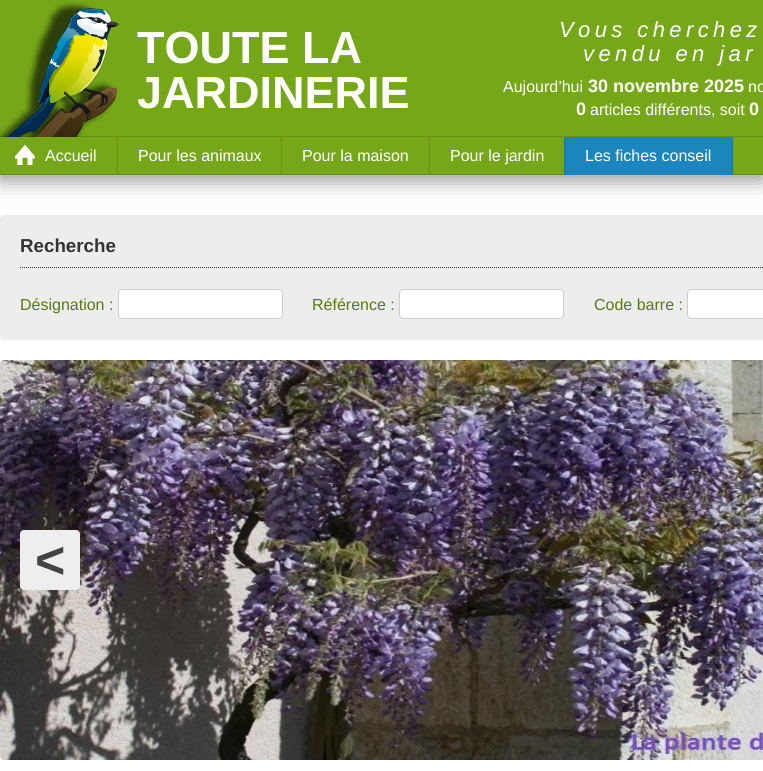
import math
import cairo

surface = cairo.ImageSurface(cairo.Format.RGB24, 763, 771)
ctx = cairo.Context(surface)
options = cairo.FontOptions()
options.set_hint_metrics(cairo.HintMetrics.OFF)
options.set_hint_style(cairo.HintStyle.NONE)
ctx.set_font_options(options)
ctx.set_miter_limit(4)


def ink(r, g, b):
    ctx.set_source_rgb(r / 255, g / 255, b / 255)


def write(x, y, s, family, size, color, bold=False, italic=False):
    ctx.select_font_face(family, cairo.FontSlant.ITALIC if italic else cairo.FontSlant.NORMAL, cairo.FontWeight.BOLD if bold else cairo.FontWeight.NORMAL)
    ctx.set_font_size(size)
    ink(*color)
    ctx.move_to(x, y)
    ctx.show_text(s)


def write_spaced(x, y, s, letter, word):
    ctx.move_to(x, y)
    for ch in s:
        ctx.show_text(ch)
        ctx.rel_move_to(letter + word * (ch == ' '), 0)


def block(x, y, w, h, *color):
    ink(*color)
    ctx.rectangle(x, y, w, h)
    ctx.fill()


def round_path(x, y, w, h, r):
    ctx.new_sub_path()
    for i, (u, v) in enumerate([(x + w - r, y + h - r), (x + r, y + h - r), (x + r, y + r), (x + w - r, y + r)]):
        ctx.arc(u, v, r, i * math.pi / 2, (i + 1) * math.pi / 2)
    ctx.close_path()


def blur_box(x, y, w, h, r, blur, alpha):
    ctx.push_group_with_content(cairo.Content.ALPHA)
    ctx.set_operator(cairo.Operator.SOURCE)
    for i in range(15, -16, -2):
        e = blur * i / 6
        if min(w, h) + 2 * e > 0:
            ctx.set_source_rgba(0, 0, 0, alpha * math.erfc((i - 1) / 8.5) / 2)
            round_path(x - e, y - e, w + 2 * e, h + 2 * e, max(0, min(r + e + blur * .6, min(w, h) / 2 + e)))
            ctx.fill()
    ctx.mask(ctx.pop_group())


def paste(path, x, y, w, h):
    ctx.save()
    ctx.set_source_surface(cairo.ImageSurface.create_from_png(path), x, y)
    ctx.rectangle(x, y, w, h)
    ctx.fill()
    ctx.restore()


s1 = dict(family="Liberation Sans", size=45, color=(255, 255, 255), bold=True)
s2 = dict(family="Liberation Sans", size=16, color=(255, 255, 255))
s3 = dict(family="Liberation Sans", size=18, color=(255, 255, 255), bold=True)
s4 = dict(family="Liberation Sans", size=18.75, color=(51, 51, 51), bold=True)
s5 = dict(family="Liberation Sans", size=16, color=(86, 122, 18))
s6 = dict(family="Liberation Sans", size=52, color=(68, 68, 68), bold=True)

ink(255, 255, 255)
ctx.paint()
ink(34, 34, 34)
blur_box(0, 142, 763, 38, 0, 10, 0.5)
block(0, 0, 763, 136, 118, 167, 24)
block(0, 136, 763, 1, 102, 145, 21)
paste("pic1.png", 0, 1, 119, 136)
write(137, 63, "TOUTE LA", **s1)
write(137, 108, "JARDINERIE", **s1)
ctx.select_font_face("Liberation Sans", cairo.FontSlant.ITALIC)
ctx.set_font_size(22)
write_spaced(559, 37, "Vous cherchez", 4.4, 0)
write_spaced(583, 61, "vendu en jar", 4.4, 0)
write(503, 92, "Aujourd’hui", **s2)
write(588, 92, "30 novembre 2025", **s3)
write(748, 92, "no", **s2)
write(576, 115, "0", **s3)
write(590, 115, "articles différents, soit", **s2)
write(749, 115, "0", **s3)
block(0, 137, 763, 37, 118, 167, 24)
block(0, 174, 763, 1, 102, 145, 21)
paste("pic2.png", 15, 145, 20, 20)
write(45, 161, "Accueil", **s2)
block(117, 137, 1, 38, 102, 145, 21)
write(138, 161, "Pour les animaux", **s2)
block(281, 137, 1, 38, 102, 145, 21)
write(302, 161, "Pour la maison", **s2)
block(429, 137, 1, 38, 102, 145, 21)
write(450, 161, "Pour le jardin", **s2)
block(732, 137, 1, 38, 24, 118, 167)
block(564, 137, 1, 38, 24, 118, 167)
block(565, 137, 167, 38, 27, 134, 189)
write(585, 161, "Les fiches conseil", **s2)
ink(237, 237, 237)
round_path(0, 215, 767, 125, 4)
ctx.fill()
ctx.new_path()
ctx.move_to(20, 267.5)
ctx.line_to(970, 267.5)
ink(51, 51, 51)
ctx.set_line_width(1)
ctx.set_dash([1, 1])
ctx.stroke()
write(20, 252, "Recherche", **s4)
write(20, 310, "Désignation :", **s5)
ink(255, 255, 255)
round_path(118.5, 289.5, 164, 29, 3.5)
ctx.fill_preserve()
ink(205, 205, 205)
ctx.set_dash([])
ctx.stroke()
write(312, 310, "Référence :", **s5)
ink(255, 255, 255)
round_path(399.5, 289.5, 164, 29, 3.5)
ctx.fill_preserve()
ink(205, 205, 205)
ctx.stroke()
write(594, 310, "Code barre :", **s5)
ink(255, 255, 255)
round_path(687.5, 289.5, 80, 29, 3.5)
ctx.fill_preserve()
ink(205, 205, 205)
ctx.stroke()
paste("pic3.png", 0, 360, 763, 400)
ink(238, 238, 238)
round_path(20, 530, 60, 60, 4)
ctx.fill()
write(35, 578, "<", **s6)
surface.write_to_png("screenshot.png")
